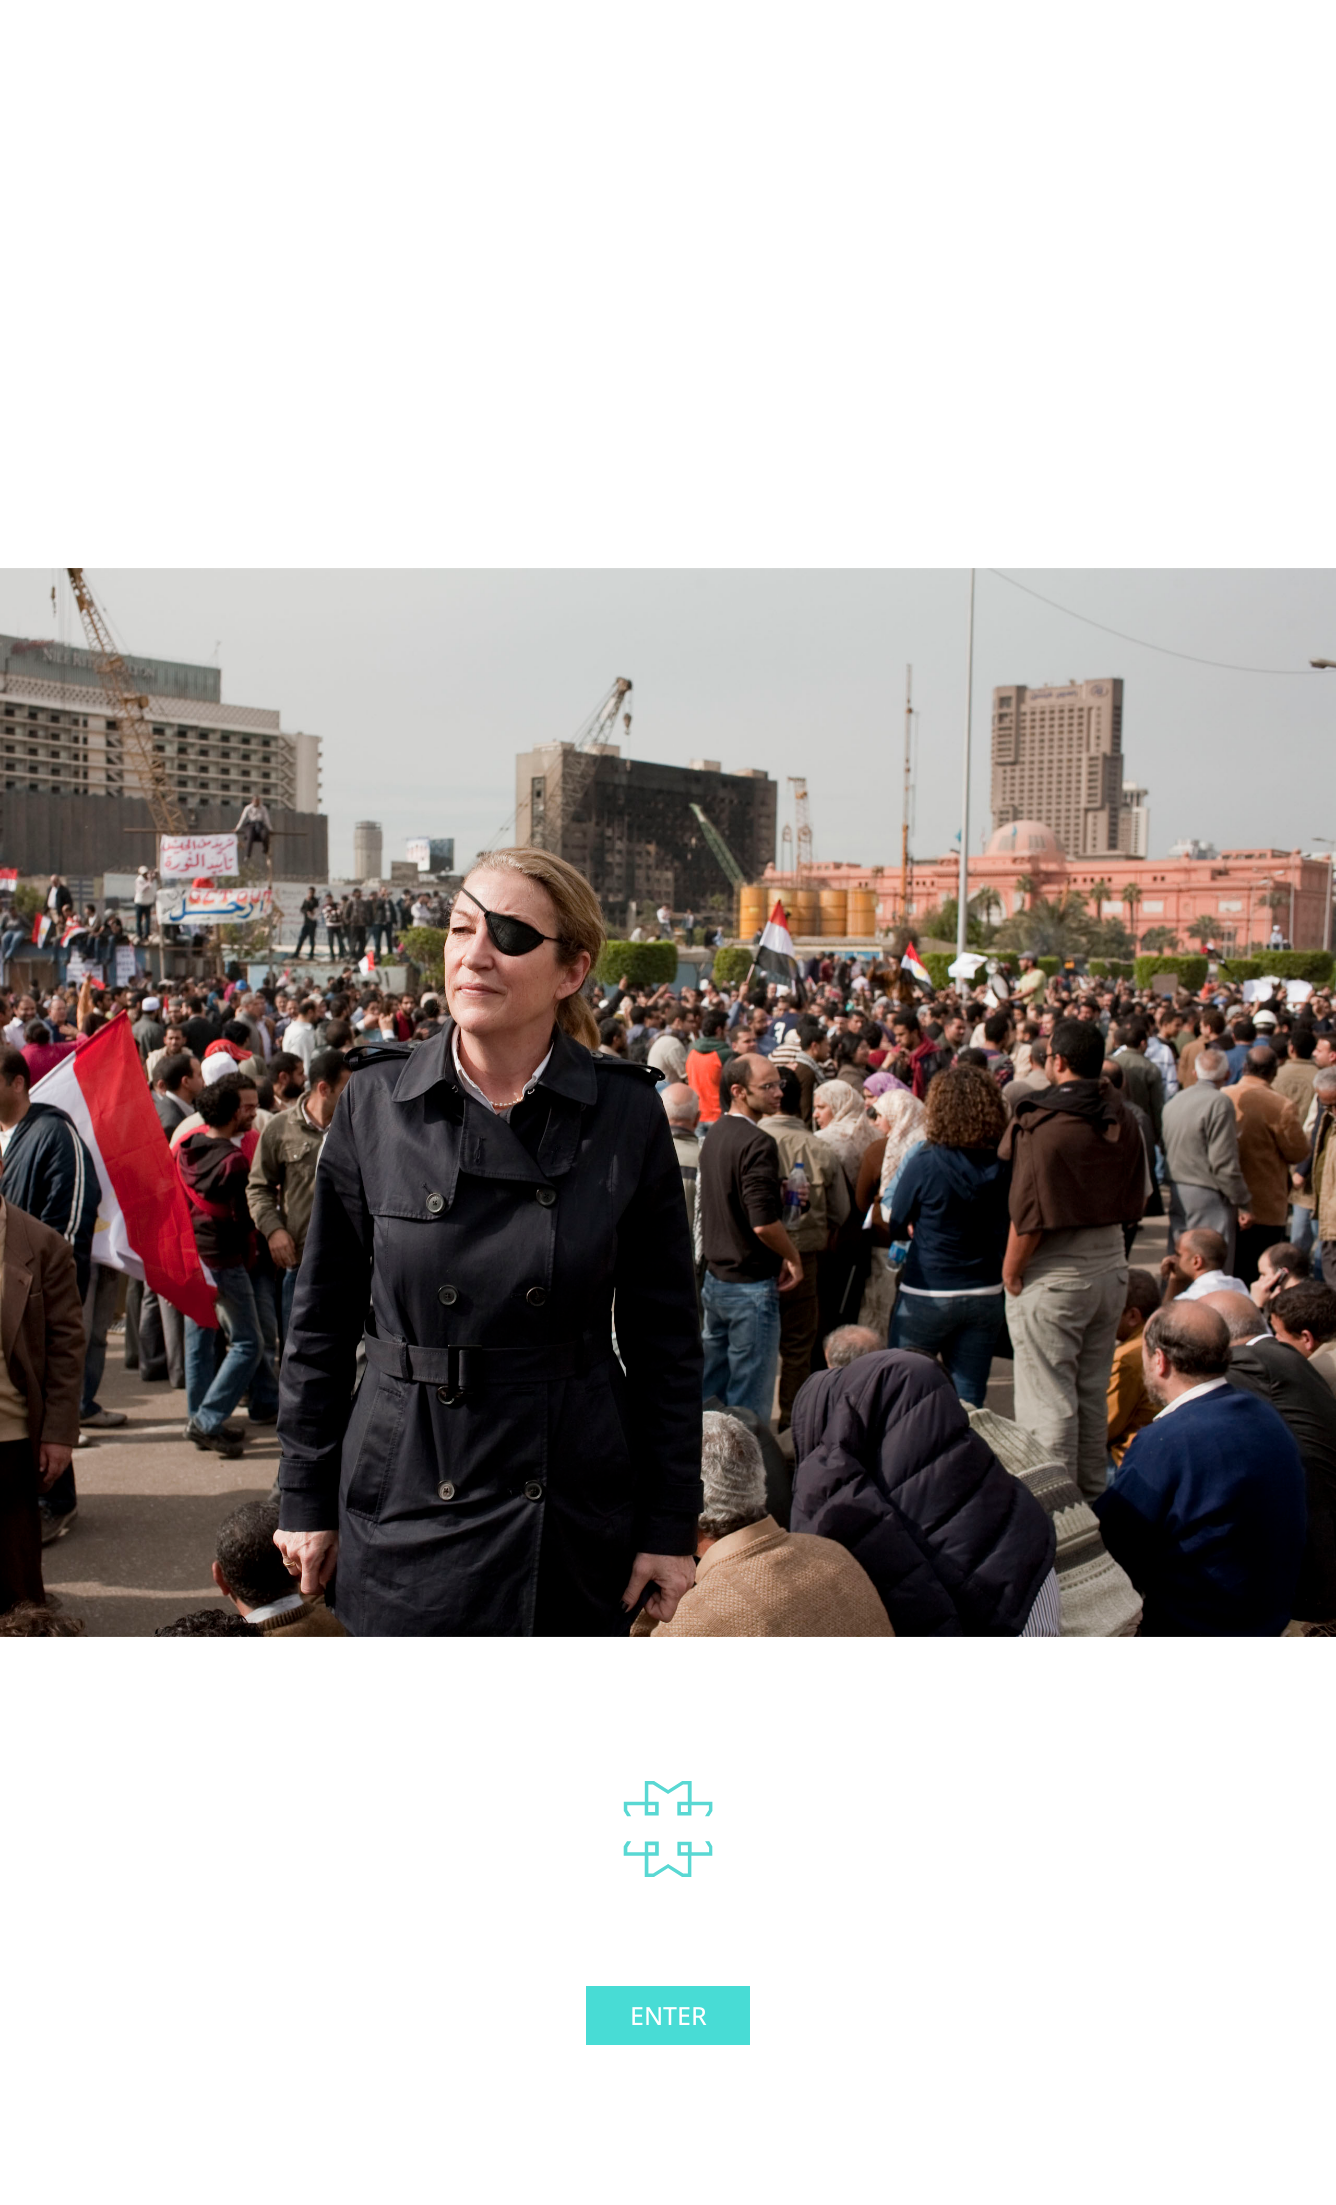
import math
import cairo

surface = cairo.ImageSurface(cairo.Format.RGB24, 1336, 2205)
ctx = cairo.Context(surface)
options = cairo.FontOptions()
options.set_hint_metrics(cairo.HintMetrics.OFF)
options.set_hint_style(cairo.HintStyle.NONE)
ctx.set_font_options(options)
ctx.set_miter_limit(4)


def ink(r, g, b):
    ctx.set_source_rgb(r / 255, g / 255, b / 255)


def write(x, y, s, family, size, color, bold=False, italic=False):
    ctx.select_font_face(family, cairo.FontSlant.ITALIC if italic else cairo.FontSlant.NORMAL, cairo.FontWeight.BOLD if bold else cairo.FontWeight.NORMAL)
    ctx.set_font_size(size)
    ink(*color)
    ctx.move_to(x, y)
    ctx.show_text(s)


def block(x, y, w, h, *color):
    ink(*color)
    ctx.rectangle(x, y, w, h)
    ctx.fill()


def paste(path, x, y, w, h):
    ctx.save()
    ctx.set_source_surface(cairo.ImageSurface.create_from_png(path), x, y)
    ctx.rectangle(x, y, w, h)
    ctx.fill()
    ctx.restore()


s1 = dict(family="Open Sans Medium", size=25, color=(255, 255, 255))

ink(255, 255, 255)
ctx.paint()
paste("pic1.png", 0, 568, 1336, 1069)
paste("pic2.png", 623, 1781, 90, 96)
block(586, 1986, 164, 59, 72, 220, 213)
write(630, 2025, "ENTER", **s1)
surface.write_to_png("screenshot.png")
